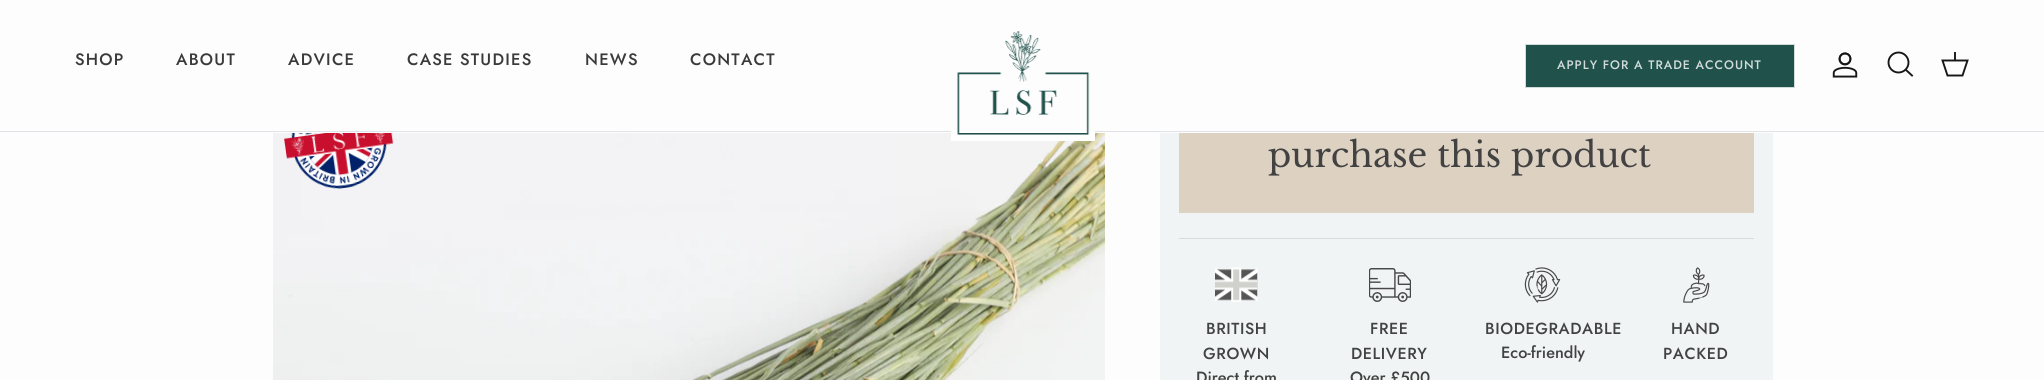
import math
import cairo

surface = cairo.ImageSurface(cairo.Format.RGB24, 2044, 380)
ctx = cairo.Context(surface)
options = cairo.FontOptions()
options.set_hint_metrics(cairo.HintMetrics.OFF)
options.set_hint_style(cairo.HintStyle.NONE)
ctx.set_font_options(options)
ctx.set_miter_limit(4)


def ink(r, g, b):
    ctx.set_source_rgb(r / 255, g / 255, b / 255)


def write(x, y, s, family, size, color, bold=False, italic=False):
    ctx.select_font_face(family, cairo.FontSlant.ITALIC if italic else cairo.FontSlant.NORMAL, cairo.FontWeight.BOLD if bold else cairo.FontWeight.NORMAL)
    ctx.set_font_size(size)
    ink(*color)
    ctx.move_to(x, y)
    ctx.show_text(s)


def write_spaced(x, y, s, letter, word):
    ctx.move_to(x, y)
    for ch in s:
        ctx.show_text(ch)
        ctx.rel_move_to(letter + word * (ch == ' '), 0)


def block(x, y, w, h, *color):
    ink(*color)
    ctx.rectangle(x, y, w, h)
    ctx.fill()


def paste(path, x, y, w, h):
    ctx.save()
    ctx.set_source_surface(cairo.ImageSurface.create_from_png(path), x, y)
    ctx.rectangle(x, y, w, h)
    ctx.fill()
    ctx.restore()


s1 = dict(family="Libre Baskerville", size=34.4, color=(66, 66, 66))
s2 = dict(family="Jost Medium", size=16.25, color=(66, 66, 66))

ink(253, 253, 253)
ctx.paint()
block(0, 131, 2044, 1, 223, 227, 232)
ctx.select_font_face("Jost Medium")
ctx.set_font_size(16.5)
ink(58, 58, 58)
write_spaced(75, 65, "SHOP", 1.25, 0)
write_spaced(176, 65, "ABOUT", 1.25, 0)
write_spaced(288, 65, "ADVICE", 1.25, 0)
write_spaced(407, 65, "CASE STUDIES", 1.25, 0)
write_spaced(585, 65, "NEWS", 1.25, 0)
write_spaced(690, 65, "CONTACT", 1.25, 0)
paste("pic3.png", 273, 133, 832, 247)
block(951, 131, 144, 10, 255, 255, 255)
paste("pic1.png", 957, 31, 133, 104)
ink(32, 81, 75)
ctx.rectangle(1525.5, 44.5, 269, 43)
ctx.fill_preserve()
ink(210, 220, 219)
ctx.set_line_width(1)
ctx.stroke()
ctx.set_font_size(12.3)
write_spaced(1557, 69, "APPLY FOR A TRADE ACCOUNT", 1, 0)
paste("pic2.png", 1832, 52, 26, 26)
ctx.arc(1898.5, 62.5, 10, 0, 2 * math.pi)
ink(23, 23, 23)
ctx.set_line_width(1.9)
ctx.stroke()
ctx.new_path()
ctx.move_to(1906, 70)
ctx.line_to(1912, 75.5)
ctx.set_line_cap(cairo.LineCap.SQUARE)
ctx.stroke()
ctx.new_path()
ctx.move_to(1942.5, 60.5)
ctx.line_to(1967.5, 60.5)
ctx.line_to(1962.5, 75.5)
ctx.line_to(1947.5, 75.5)
ctx.close_path()
ctx.set_line_cap(cairo.LineCap.BUTT)
ctx.stroke()
ctx.set_source_rgba(0.09, 0.09, 0.09, 0.95)
ctx.rectangle(1954, 52, 2, 9)
ctx.fill()
paste("pic4.png", 284, 133, 110, 56)
block(1160, 133, 613, 247, 241, 244, 244)
block(1179, 133, 575, 80, 221, 209, 194)
write(1268, 167, "purchase this product", **s1)
block(1179, 238, 575, 1, 217, 219, 219)
paste("pic5.png", 1215, 267, 43, 35)
ctx.select_font_face("Jost Medium")
ctx.set_font_size(16)
ink(66, 66, 66)
write_spaced(1206, 334, "BRITISH", 0.6, 0)
write_spaced(1203, 359, "GROWN", 0.6, 0)
write(1196, 383, "Direct from", **s2)
paste("pic6.png", 1369, 268, 42, 34)
ctx.set_font_size(16)
write_spaced(1370, 334, "FREE", 0.6, 0)
write_spaced(1351, 359, "DELIVERY", 0.6, 0)
write(1350, 383, "Over £500", **s2)
paste("pic7.png", 1524, 267, 37, 36)
ctx.set_font_size(16)
write_spaced(1485, 334, "BIODEGRADABLE", 0.6, 0)
write(1501, 358, "Eco-friendly", **s2)
paste("pic8.png", 1683, 267, 27, 36)
ctx.set_font_size(16)
write_spaced(1671, 334, "HAND", 0.6, 0)
write_spaced(1663, 359, "PACKED", 0.6, 0)
surface.write_to_png("screenshot.png")
